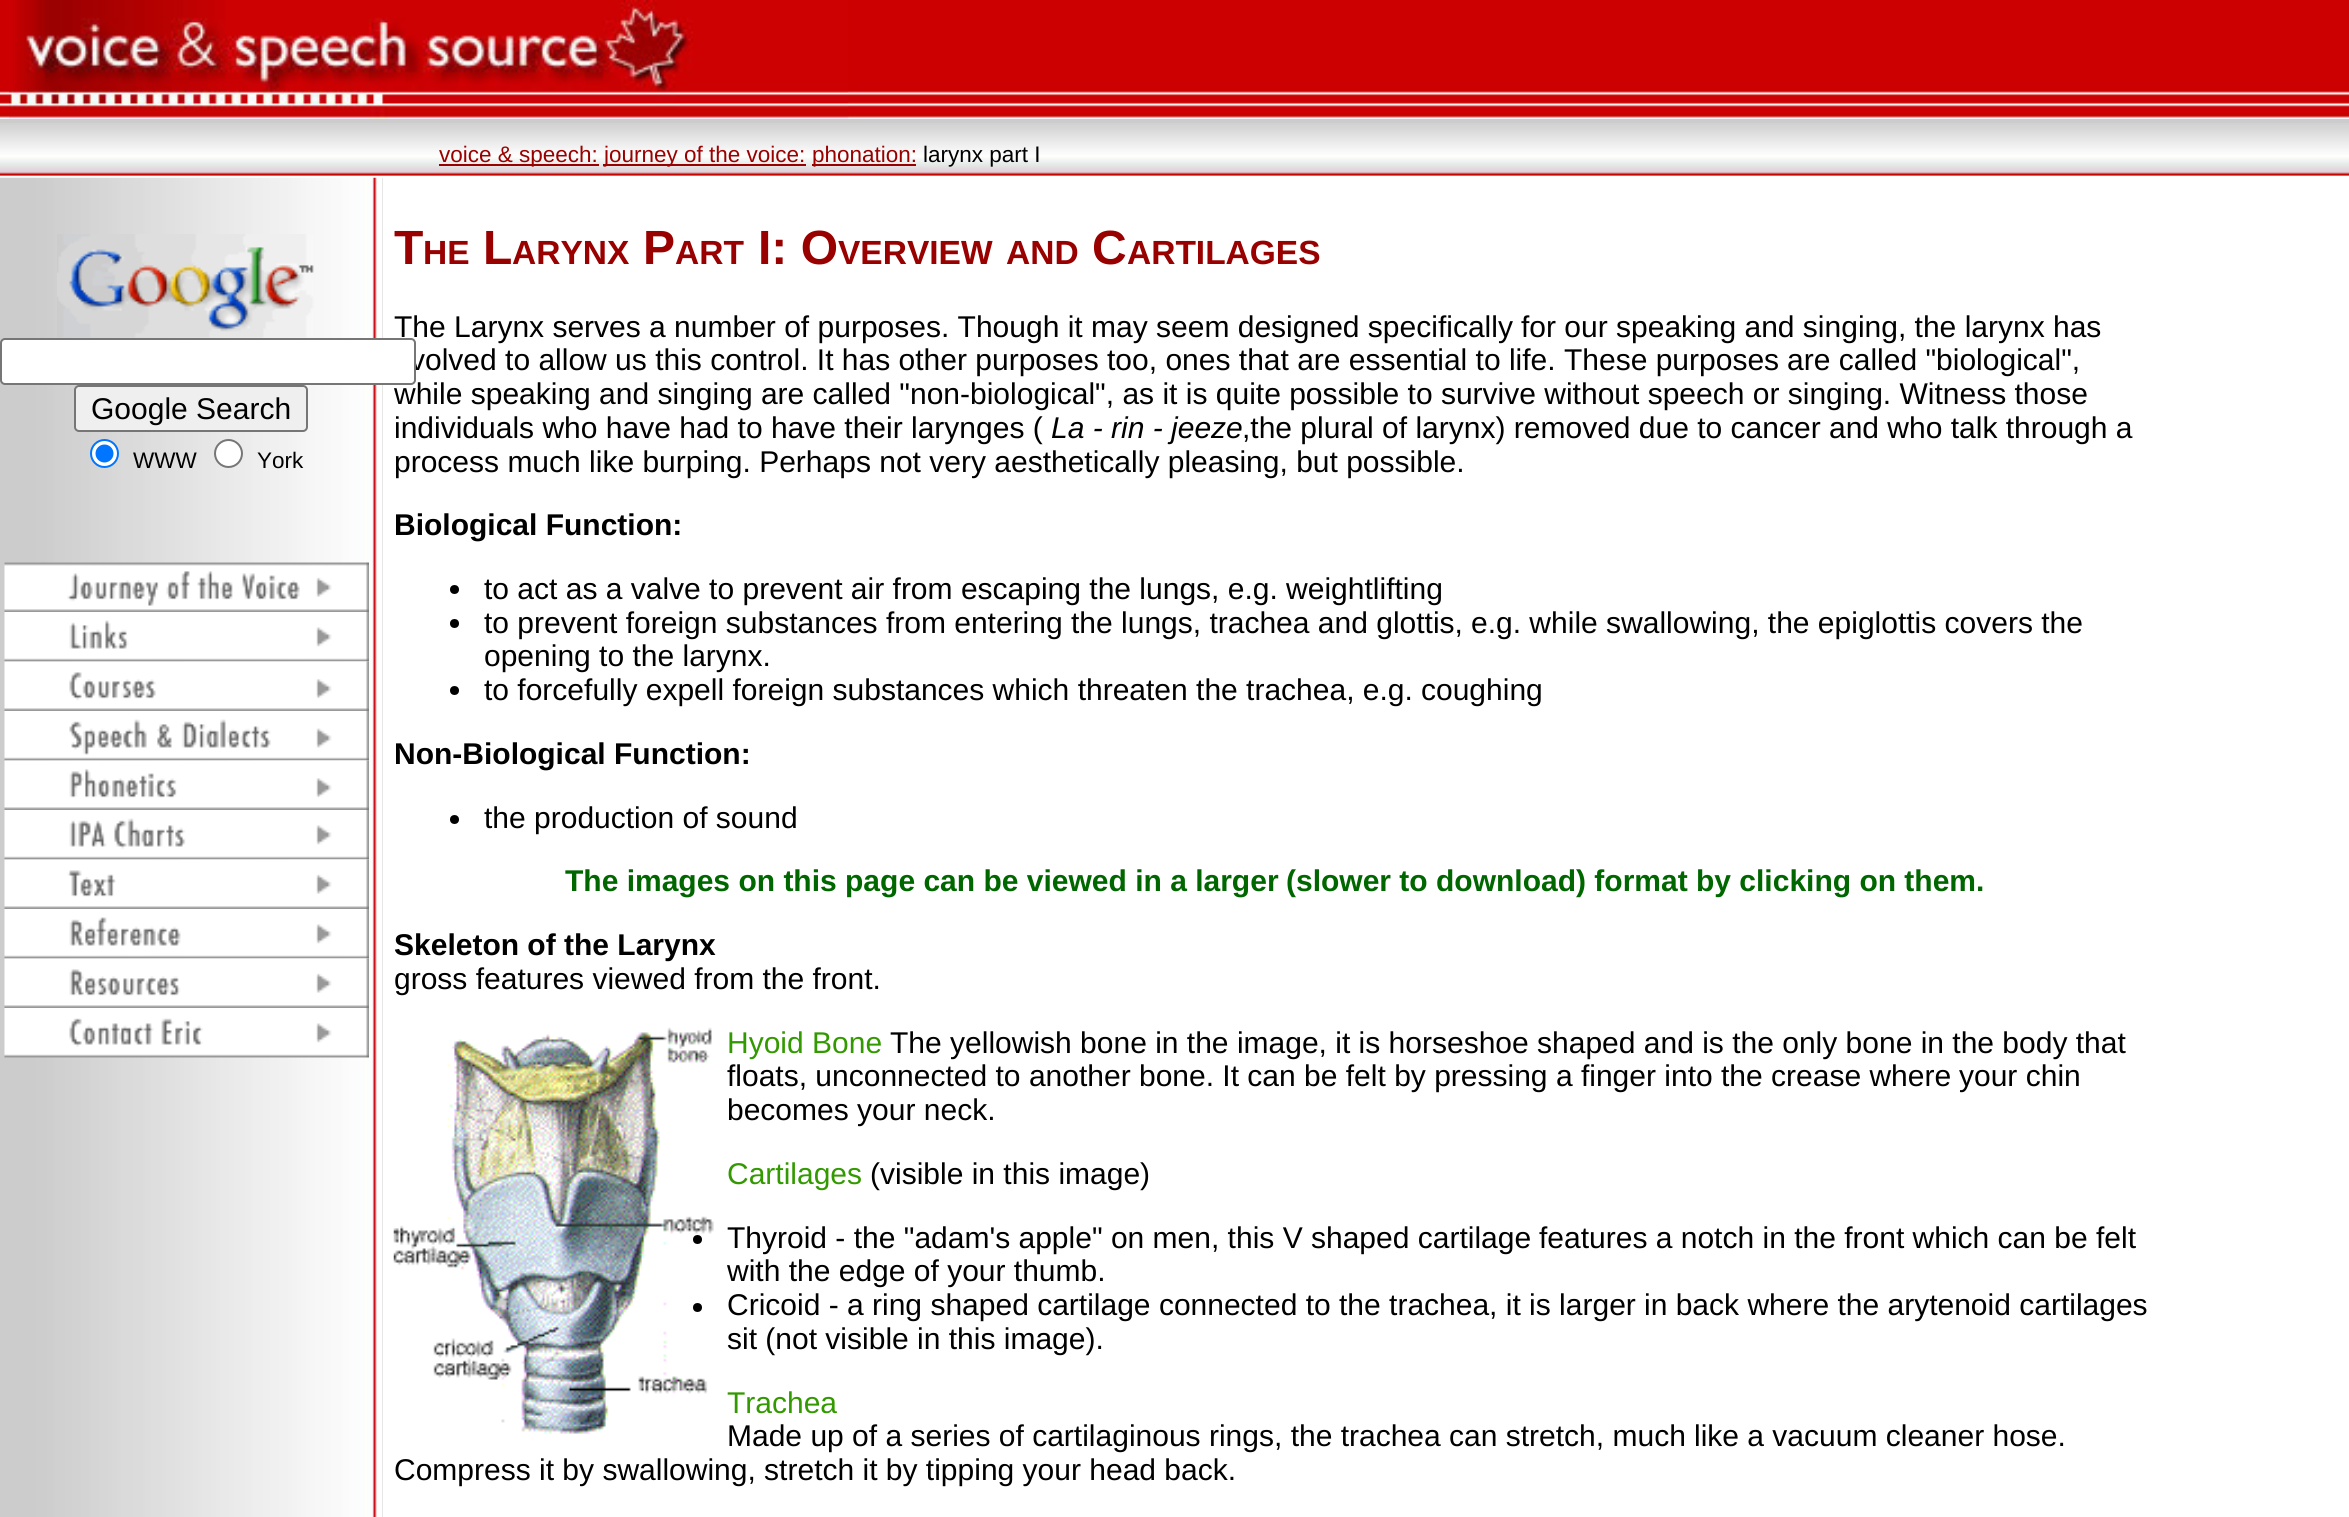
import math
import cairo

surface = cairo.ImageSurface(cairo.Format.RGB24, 2349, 1517)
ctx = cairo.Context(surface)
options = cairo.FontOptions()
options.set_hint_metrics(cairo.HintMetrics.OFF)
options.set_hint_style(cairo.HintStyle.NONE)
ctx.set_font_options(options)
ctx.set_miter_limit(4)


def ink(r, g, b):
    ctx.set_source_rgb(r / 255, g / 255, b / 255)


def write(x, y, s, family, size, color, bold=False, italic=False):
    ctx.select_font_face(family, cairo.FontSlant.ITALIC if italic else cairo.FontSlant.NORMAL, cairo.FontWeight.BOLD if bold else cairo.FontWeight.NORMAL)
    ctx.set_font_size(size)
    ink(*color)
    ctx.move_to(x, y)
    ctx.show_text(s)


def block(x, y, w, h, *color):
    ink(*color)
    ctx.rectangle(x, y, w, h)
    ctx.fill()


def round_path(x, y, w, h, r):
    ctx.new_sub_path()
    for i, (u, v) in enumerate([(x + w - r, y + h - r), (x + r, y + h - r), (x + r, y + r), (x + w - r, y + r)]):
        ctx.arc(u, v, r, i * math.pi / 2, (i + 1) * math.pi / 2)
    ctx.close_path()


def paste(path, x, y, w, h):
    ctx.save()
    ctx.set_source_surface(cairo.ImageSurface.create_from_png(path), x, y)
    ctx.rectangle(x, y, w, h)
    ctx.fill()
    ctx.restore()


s1 = dict(family="Liberation Sans", size=22.5, color=(153, 0, 0))
s2 = dict(family="Liberation Sans", size=22.5, color=(0, 0, 0))
s3 = dict(family="Liberation Sans", size=30, color=(0, 0, 0))
s4 = dict(family="Liberation Sans", size=48, color=(153, 0, 0), bold=True)
s5 = dict(family="Liberation Sans", size=33.5, color=(153, 0, 0), bold=True)
s6 = dict(family="Liberation Sans", size=30, color=(0, 0, 0), italic=True)
s7 = dict(family="Liberation Sans", size=30, color=(0, 0, 0), bold=True)
s8 = dict(family="Liberation Sans", size=30, color=(0, 102, 0), bold=True)
s9 = dict(family="Liberation Sans", size=30, color=(51, 153, 0))

ink(255, 255, 255)
ctx.paint()
block(0, 0, 2349, 91, 204, 0, 0)
paste("pic1.png", 0, 91, 2349, 28)
paste("pic2.png", 9, 0, 840, 119)
block(0, 119, 2349, 57, 204, 204, 204)
paste("pic3.png", 0, 123, 2349, 53)
block(439, 164, 160, 2, 153, 0, 0)
write(439, 162, "voice & speech:", **s1)
block(603, 164, 203, 2, 153, 0, 0)
write(604, 162, "journey of the voice:", **s1)
block(812, 164, 104, 2, 153, 0, 0)
write(812, 162, "phonation:", **s1)
write(923, 162, "larynx part I", **s2)
block(382, 178, 1, 1339, 204, 204, 204)
paste("pic4.png", 0, 177, 383, 1340)
paste("pic5.png", 57, 234, 257, 104)
write(394, 337, "The Larynx serves a number of purposes. Though it may seem designed specifically", **s3)
write(410, 370, "volved to allow us this control. It has other purposes too, ones that are essential to life. These purposes", **s3)
write(394, 404, "while speaking and singing are called \"non-biological\", as it is quite possible to survive without speech or singing. Witness those", **s3)
ink(255, 255, 255)
round_path(1, 339, 414, 45, 4)
ctx.fill_preserve()
ink(118, 118, 118)
ctx.stroke()
ink(239, 239, 239)
round_path(75, 386, 232, 45, 4)
ctx.fill_preserve()
ink(118, 118, 118)
ctx.stroke()
write(91, 419, "Google Search", **s3)
ink(255, 255, 255)
ctx.new_path()
ctx.arc(104.5, 453.5, 13.5, 0, 2 * math.pi)
ctx.fill_preserve()
ink(0, 117, 255)
ctx.stroke()
ctx.arc(104.5, 453.5, 9, 0, 2 * math.pi)
ctx.fill()
write(133, 468, "WWW", **s2)
ink(255, 255, 255)
ctx.new_path()
ctx.arc(228.5, 453.5, 13.5, 0, 2 * math.pi)
ctx.fill_preserve()
ink(118, 118, 118)
ctx.stroke()
write(257, 468, "York", **s2)
write(394, 264, "T", **s4)
write(423, 264, "HE", **s5)
write(483, 264, "L", **s4)
write(512, 264, "ARYNX", **s5)
write(643, 264, "P", **s4)
write(675, 264, "ART", **s5)
write(758, 264, "I: O", **s4)
write(838, 264, "VERVIEW", **s5)
write(1006, 264, "AND", **s5)
write(1092, 264, "C", **s4)
write(1127, 264, "ARTILAGES", **s5)
write(1521, 337, "for our speaking and singing, the larynx has", **s3)
write(1787, 370, "are called \"biological\",", **s3)
write(394, 438, "individuals who have had to have their larynges (", **s3)
write(1051, 438, "La - rin - jeeze", **s6)
write(1242, 438, ",the plural of larynx) removed due to cancer and who talk through a", **s3)
write(394, 472, "process much like burping. Perhaps not very aesthetically pleasing, but possible.", **s3)
write(394, 535, "Biological Function:", **s7)
ctx.new_path()
ctx.arc(454.5, 589.5, 4.5, 0, 2 * math.pi)
ctx.fill()
write(484, 599, "to act as a valve to prevent air from escaping the lungs, e.g. weightlifting", **s3)
ctx.new_path()
ctx.arc(454.5, 623.5, 4.5, 0, 2 * math.pi)
ctx.fill()
write(484, 633, "to prevent foreign substances from entering the lungs, trachea and glottis,", **s3)
write(1471, 633, "e.g. while swallowing, the epiglottis covers the", **s3)
write(484, 666, "opening to the larynx.", **s3)
ctx.new_path()
ctx.arc(454.5, 690.5, 4.5, 0, 2 * math.pi)
ctx.fill()
write(484, 700, "to forcefully expell foreign substances which threaten the trachea, e.g.", **s3)
write(1421, 700, "coughing", **s3)
write(394, 764, "Non-Biological Function:", **s7)
ctx.new_path()
ctx.arc(454.5, 819.5, 4.5, 0, 2 * math.pi)
ctx.fill()
write(484, 828, "the production of sound", **s3)
write(565, 891, "The images on this page can be viewed in a larger", **s8)
write(1286, 891, "(slower to download) format by clicking on them.", **s8)
write(394, 955, "Skeleton of the Larynx", **s7)
write(394, 989, "gross features viewed from the front.", **s3)
paste("pic6.png", 393, 1027, 321, 407)
write(727, 1053, "Hyoid Bone", **s9)
write(890, 1053, "The yellowish bone in the image, it is horseshoe shaped and is the only bone in the body that", **s3)
write(727, 1086, "floats, unconnected to another bone. It can be felt by pressing a finger into the crease where", **s3)
write(1959, 1086, "your chin", **s3)
write(727, 1120, "becomes your neck.", **s3)
write(727, 1184, "Cartilages", **s9)
write(870, 1184, "(visible in this image)", **s3)
ctx.new_path()
ctx.arc(697.5, 1239.5, 4.5, 0, 2 * math.pi)
ctx.fill()
write(727, 1248, "Thyroid - the \"adam's apple\" on men, this V shaped cartilage", **s3)
write(1539, 1248, "features a notch in the front which can be felt", **s3)
write(727, 1281, "with the edge of your thumb.", **s3)
ctx.new_path()
ctx.arc(697.5, 1307.5, 4.5, 0, 2 * math.pi)
ctx.fill()
write(727, 1315, "Cricoid - a ring shaped cartilage connected to the trachea, it is larger", **s3)
write(1644, 1315, "in back where the arytenoid cartilages", **s3)
write(727, 1349, "sit (not visible in this image).", **s3)
write(727, 1413, "Trachea", **s9)
write(727, 1446, "Made up of a series of cartilaginous rings, the trachea can stretch, much", **s3)
write(1694, 1446, "like a vacuum cleaner hose.", **s3)
write(394, 1480, "Compress it by swallowing, stretch it by tipping your head back.", **s3)
paste("pic7.png", 4, 562, 365, 50)
paste("pic8.png", 4, 612, 365, 50)
paste("pic9.png", 4, 661, 365, 50)
paste("pic10.png", 4, 711, 365, 50)
paste("pic11.png", 4, 760, 365, 50)
paste("pic12.png", 4, 810, 365, 50)
paste("pic13.png", 4, 859, 365, 50)
paste("pic14.png", 4, 909, 365, 50)
paste("pic15.png", 4, 958, 365, 50)
paste("pic16.png", 4, 1008, 365, 50)
surface.write_to_png("screenshot.png")
